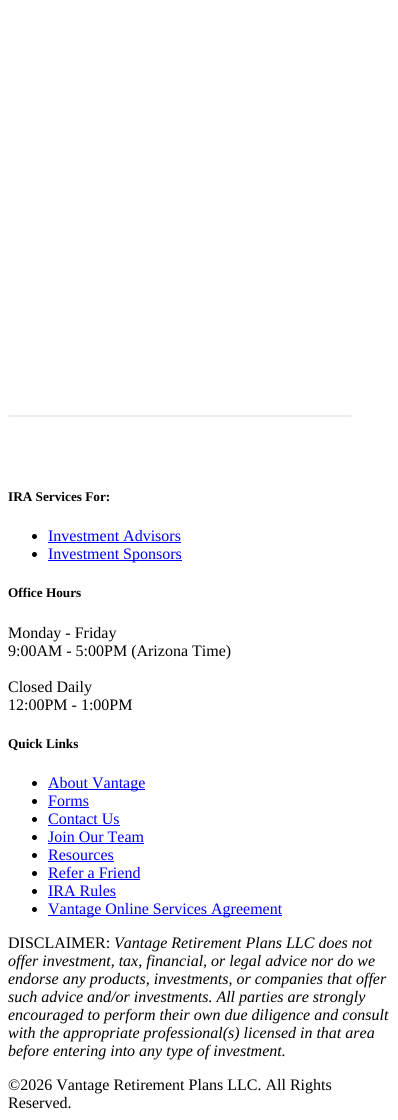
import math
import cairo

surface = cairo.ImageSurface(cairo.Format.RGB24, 398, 1120)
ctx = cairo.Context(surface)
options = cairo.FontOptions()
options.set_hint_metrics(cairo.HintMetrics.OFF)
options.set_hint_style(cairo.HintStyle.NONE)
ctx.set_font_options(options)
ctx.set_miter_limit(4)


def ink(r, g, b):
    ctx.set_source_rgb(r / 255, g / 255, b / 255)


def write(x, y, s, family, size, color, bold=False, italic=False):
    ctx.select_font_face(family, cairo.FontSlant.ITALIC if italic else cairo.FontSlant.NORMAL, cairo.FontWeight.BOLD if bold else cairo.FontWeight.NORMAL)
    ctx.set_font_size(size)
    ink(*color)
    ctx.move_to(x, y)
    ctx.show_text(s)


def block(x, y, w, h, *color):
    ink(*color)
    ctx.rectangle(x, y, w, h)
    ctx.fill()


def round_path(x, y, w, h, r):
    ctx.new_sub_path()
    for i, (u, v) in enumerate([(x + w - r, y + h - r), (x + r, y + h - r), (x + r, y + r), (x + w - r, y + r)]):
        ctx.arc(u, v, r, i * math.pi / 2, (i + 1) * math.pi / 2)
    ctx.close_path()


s1 = dict(family="Liberation Serif", size=13.25, color=(0, 0, 0), bold=True)
s2 = dict(family="Liberation Serif", size=16, color=(0, 0, 255))
s3 = dict(family="Liberation Serif", size=16, color=(0, 0, 0))
s4 = dict(family="Liberation Serif", size=16, color=(0, 0, 0), italic=True)

ink(255, 255, 255)
ctx.paint()
ink(238, 236, 241)
round_path(8, 415, 344, 2, 1)
ctx.fill()
write(8, 501, "IRA Services For:", **s1)
ctx.new_path()
ctx.arc(34.5, 536.5, 2.5, 0, 2 * math.pi)
ctx.fill()
write(48, 541, "Investment Advisors", **s2)
block(48, 542, 133, 1, 0, 0, 255)
ink(0, 0, 0)
ctx.new_path()
ctx.arc(34.5, 554.5, 2.5, 0, 2 * math.pi)
ctx.fill()
block(48, 560, 134, 1, 0, 0, 255)
write(48, 559, "Investment Sponsors", **s2)
write(8, 597, "Office Hours", **s1)
write(8, 638, "Monday - Friday", **s3)
write(8, 656, "9:00AM - 5:00PM (Arizona Time)", **s3)
write(8, 692, "Closed Daily", **s3)
write(8, 710, "12:00PM - 1:00PM", **s3)
write(8, 748, "Quick Links", **s1)
ctx.new_path()
ctx.arc(34.5, 783.5, 2.5, 0, 2 * math.pi)
ctx.fill()
block(48, 789, 97, 1, 0, 0, 255)
write(48, 788, "About Vantage", **s2)
ink(0, 0, 0)
ctx.new_path()
ctx.arc(34.5, 801.5, 2.5, 0, 2 * math.pi)
ctx.fill()
write(48, 806, "Forms", **s2)
block(48, 807, 41, 1, 0, 0, 255)
ink(0, 0, 0)
ctx.new_path()
ctx.arc(34.5, 819.5, 2.5, 0, 2 * math.pi)
ctx.fill()
write(48, 824, "Contact Us", **s2)
block(48, 825, 72, 1, 0, 0, 255)
ink(0, 0, 0)
ctx.new_path()
ctx.arc(34.5, 837.5, 2.5, 0, 2 * math.pi)
ctx.fill()
write(48, 842, "Join Our Team", **s2)
block(48, 843, 96, 1, 0, 0, 255)
ink(0, 0, 0)
ctx.new_path()
ctx.arc(34.5, 855.5, 2.5, 0, 2 * math.pi)
ctx.fill()
write(48, 860, "Resources", **s2)
block(48, 861, 66, 1, 0, 0, 255)
ink(0, 0, 0)
ctx.new_path()
ctx.arc(34.5, 873.5, 2.5, 0, 2 * math.pi)
ctx.fill()
write(48, 878, "Refer a Friend", **s2)
block(48, 879, 92, 1, 0, 0, 255)
ink(0, 0, 0)
ctx.new_path()
ctx.arc(34.5, 891.5, 2.5, 0, 2 * math.pi)
ctx.fill()
write(48, 896, "IRA Rules", **s2)
block(48, 897, 68, 1, 0, 0, 255)
ink(0, 0, 0)
ctx.new_path()
ctx.arc(34.5, 909.5, 2.5, 0, 2 * math.pi)
ctx.fill()
block(48, 915, 234, 1, 0, 0, 255)
write(48, 914, "Vantage Online Services Agreement", **s2)
write(8, 948, "DISCLAIMER:", **s3)
write(114, 948, "Vantage Retirement Plans LLC does not", **s4)
write(8, 966, "offer investment, tax, financial, or legal advice nor do we", **s4)
write(8, 984, "endorse any products, investments, or companies that offer", **s4)
write(8, 1002, "such advice and/or investments. All parties are strongly", **s4)
write(8, 1020, "encouraged to perform their own due diligence and consult", **s4)
write(8, 1038, "with the appropriate professional(s) licensed in that area", **s4)
write(8, 1056, "before entering into any type of investment.", **s4)
write(8, 1090, "©2026 Vantage Retirement Plans LLC. All Rights", **s3)
write(8, 1108, "Reserved.", **s3)
surface.write_to_png("screenshot.png")
